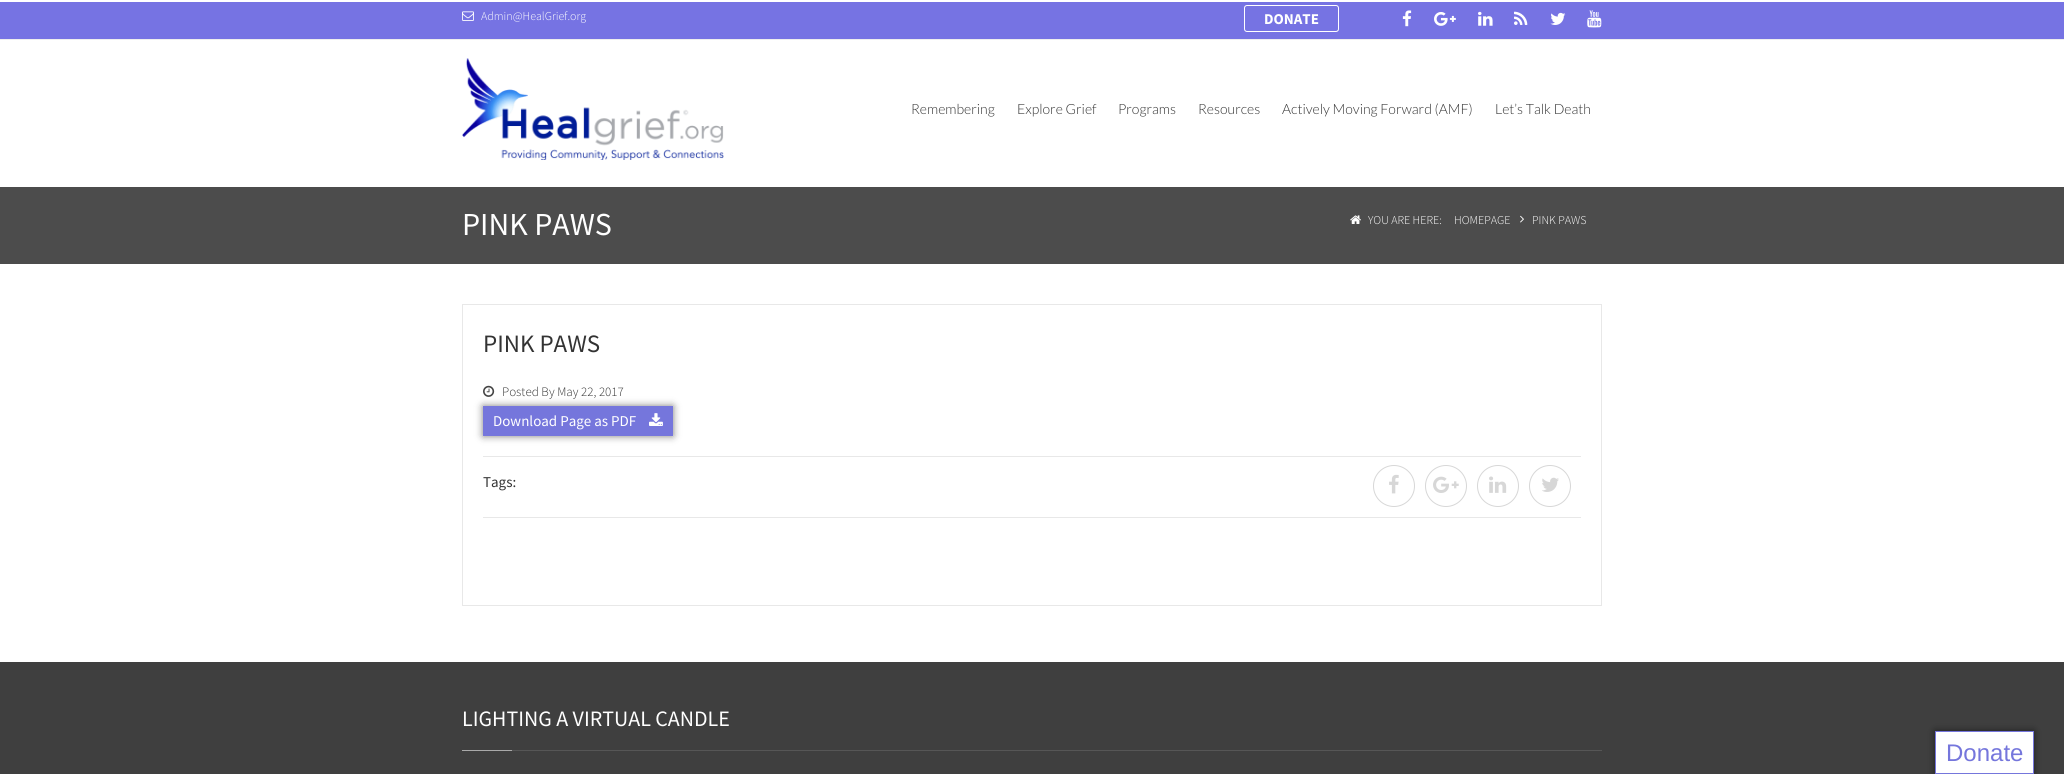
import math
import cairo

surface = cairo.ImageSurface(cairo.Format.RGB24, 2064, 774)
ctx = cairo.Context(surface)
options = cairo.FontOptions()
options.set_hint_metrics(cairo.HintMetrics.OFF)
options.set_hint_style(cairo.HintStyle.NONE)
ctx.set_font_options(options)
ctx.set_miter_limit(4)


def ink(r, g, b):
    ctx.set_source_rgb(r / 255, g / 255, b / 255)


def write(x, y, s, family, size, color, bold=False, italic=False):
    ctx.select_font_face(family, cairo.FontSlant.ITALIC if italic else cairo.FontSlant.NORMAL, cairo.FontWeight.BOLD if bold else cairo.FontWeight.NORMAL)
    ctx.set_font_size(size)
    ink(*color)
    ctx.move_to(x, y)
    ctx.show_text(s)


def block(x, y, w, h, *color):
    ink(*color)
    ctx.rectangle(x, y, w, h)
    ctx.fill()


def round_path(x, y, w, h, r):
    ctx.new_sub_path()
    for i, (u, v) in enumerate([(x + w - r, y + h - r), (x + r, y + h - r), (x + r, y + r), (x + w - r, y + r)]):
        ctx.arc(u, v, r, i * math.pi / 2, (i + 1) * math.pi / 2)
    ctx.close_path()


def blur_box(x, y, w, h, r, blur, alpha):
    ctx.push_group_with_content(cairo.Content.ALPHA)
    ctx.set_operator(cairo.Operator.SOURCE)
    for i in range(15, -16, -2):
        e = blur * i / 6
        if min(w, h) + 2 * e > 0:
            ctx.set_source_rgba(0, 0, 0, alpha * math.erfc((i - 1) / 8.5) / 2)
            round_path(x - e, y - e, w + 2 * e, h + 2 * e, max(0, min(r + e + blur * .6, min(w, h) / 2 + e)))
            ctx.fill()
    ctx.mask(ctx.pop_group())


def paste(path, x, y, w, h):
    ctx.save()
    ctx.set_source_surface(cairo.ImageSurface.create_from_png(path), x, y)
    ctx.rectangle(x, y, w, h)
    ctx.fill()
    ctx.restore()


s1 = dict(family="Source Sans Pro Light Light", size=12, color=(255, 255, 255))
s2 = dict(family="Source Sans Pro", size=15, color=(255, 255, 255), bold=True)
s3 = dict(family="Lato Light", size=14, color=(51, 51, 51))
s4 = dict(family="Source Sans Pro", size=32, color=(255, 255, 255))
s5 = dict(family="Source Sans Pro", size=25, color=(51, 51, 51))
s6 = dict(family="Source Sans Pro Light Light", size=13, color=(51, 51, 51))
s7 = dict(family="Source Sans Pro", size=15, color=(255, 255, 255))
s8 = dict(family="Source Sans Pro", size=15, color=(51, 51, 51))
s9 = dict(family="Source Sans Pro", size=22, color=(255, 255, 255))
s10 = dict(family="Liberation Sans", size=24, color=(117, 118, 220))

ink(255, 255, 255)
ctx.paint()
block(0, 2, 2064, 37, 118, 115, 227)
block(0, 39, 2064, 1, 238, 238, 238)
paste("pic1.png", 462, 11, 12, 10)
write(481, 20, "Admin@HealGrief.org", **s1)
round_path(1244.5, 5.5, 94, 26, 2.5)
ctx.set_line_width(1)
ctx.stroke()
write(1264, 24, "DONATE", **s2)
paste("pic2.png", 1402, 10, 10, 17)
paste("pic3.png", 1434, 12, 22, 14)
paste("pic4.png", 1478, 11, 15, 15)
paste("pic5.png", 1514, 11, 14, 14)
paste("pic6.png", 1550, 12, 16, 13)
paste("pic7.png", 1587, 10, 15, 18)
paste("pic8.png", 462, 58, 262, 102)
write(911, 114, "Remembering", **s3)
write(1017, 114, "Explore Grief", **s3)
write(1118, 114, "Programs", **s3)
write(1198, 114, "Resources", **s3)
write(1282, 114, "Actively Moving Forward (AMF)", **s3)
write(1495, 114, "Let’s Talk Death", **s3)
ctx.set_source_rgba(0, 0, 0, 0.7)
ctx.rectangle(0, 187, 2064, 77)
ctx.fill()
write(462, 235, "PINK PAWS", **s4)
paste("pic9.png", 1350, 215, 11, 9)
write(1368, 224, "YOU ARE HERE:", **s1)
write(1454, 224, "HOMEPAGE", **s1)
paste("pic10.png", 1520, 215, 4, 8)
write(1532, 224, "PINK PAWS", **s1)
ctx.rectangle(462.5, 304.5, 1139, 301)
ink(232, 232, 232)
ctx.stroke()
write(483, 352, "PINK PAWS", **s5)
paste("pic11.png", 483, 385, 12, 12)
write(502, 396, "Posted By May 22, 2017", **s6)
ink(0, 0, 0)
blur_box(483, 406, 190, 30, 0, 4, 0.5)
block(483, 406, 190, 30, 117, 118, 220)
write(493, 426, "Download Page as PDF", **s7)
paste("pic12.png", 649, 413, 14, 13)
block(483, 456, 1098, 1, 232, 232, 232)
block(483, 517, 1098, 1, 232, 232, 232)
write(483, 487, "Tags:", **s8)
ctx.new_path()
ctx.arc(1394, 486, 20.5, 0, 2 * math.pi)
ink(215, 215, 215)
ctx.stroke()
paste("pic13.png", 1389, 474, 10, 20)
ctx.arc(1446, 486, 20.5, 0, 2 * math.pi)
ctx.stroke()
paste("pic14.png", 1433, 476, 26, 17)
ctx.arc(1498, 486, 20.5, 0, 2 * math.pi)
ctx.stroke()
paste("pic15.png", 1489, 476, 18, 17)
ctx.arc(1550, 486, 20.5, 0, 2 * math.pi)
ctx.stroke()
paste("pic16.png", 1542, 477, 17, 15)
block(0, 662, 2064, 112, 63, 63, 63)
block(512, 750, 1090, 1, 86, 86, 86)
write(462, 726, "LIGHTING A VIRTUAL CANDLE", **s9)
block(462, 750, 50, 1, 169, 169, 169)
ink(0, 0, 0)
blur_box(1935, 731, 99, 43, 0, 4, 0.5)
ink(255, 255, 255)
ctx.rectangle(1935.5, 731.5, 98, 42)
ctx.fill_preserve()
ink(117, 118, 220)
ctx.stroke()
write(1946, 761, "Donate", **s10)
surface.write_to_png("screenshot.png")
